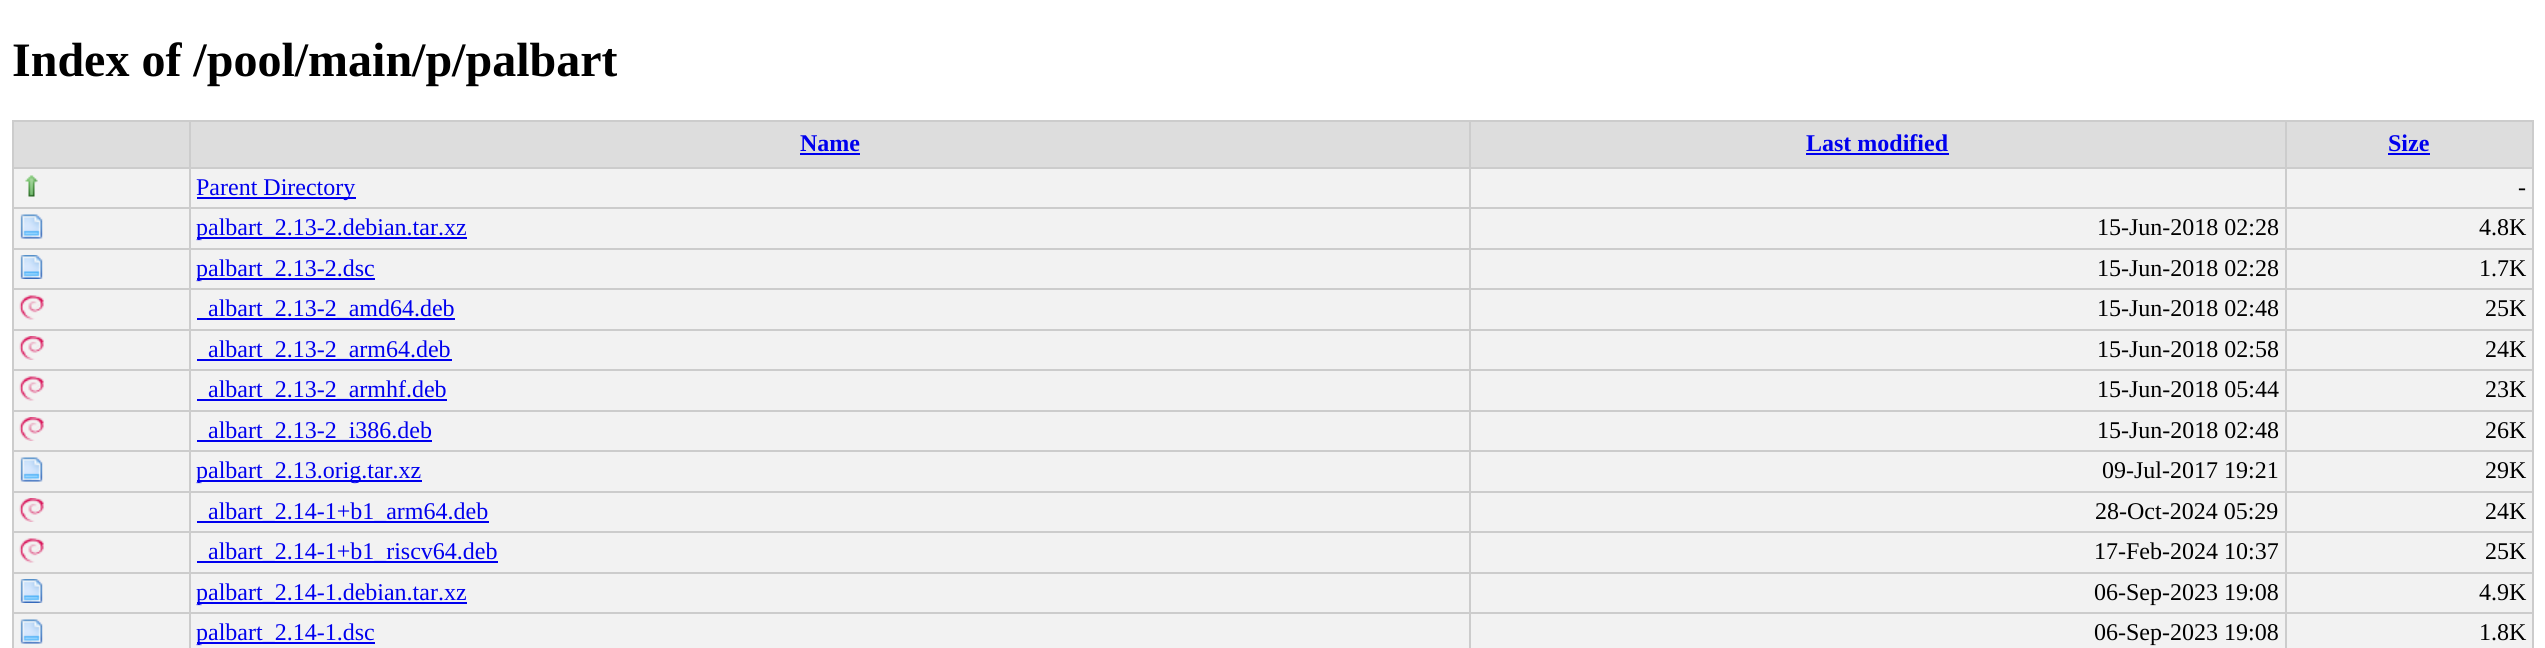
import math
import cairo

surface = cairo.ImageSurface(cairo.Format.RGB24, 2545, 648)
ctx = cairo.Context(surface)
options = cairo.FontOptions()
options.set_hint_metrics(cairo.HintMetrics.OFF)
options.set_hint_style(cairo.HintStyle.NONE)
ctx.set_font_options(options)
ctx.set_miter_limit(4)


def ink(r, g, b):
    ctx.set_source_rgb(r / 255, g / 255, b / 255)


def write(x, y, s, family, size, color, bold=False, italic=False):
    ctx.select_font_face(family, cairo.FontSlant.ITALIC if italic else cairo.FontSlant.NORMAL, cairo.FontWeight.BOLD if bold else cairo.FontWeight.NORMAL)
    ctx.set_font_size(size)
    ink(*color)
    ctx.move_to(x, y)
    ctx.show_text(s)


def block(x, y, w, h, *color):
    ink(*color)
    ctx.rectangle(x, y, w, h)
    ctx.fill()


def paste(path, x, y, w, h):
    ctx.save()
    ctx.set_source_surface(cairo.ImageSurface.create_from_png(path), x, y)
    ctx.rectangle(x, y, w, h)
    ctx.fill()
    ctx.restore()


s1 = dict(family="Liberation Serif", size=48, color=(0, 0, 0), bold=True)
s2 = dict(family="Liberation Serif", size=24, color=(0, 0, 238), bold=True)
s3 = dict(family="Liberation Serif", size=24, color=(0, 0, 238))
s4 = dict(family="Liberation Serif", size=24, color=(0, 0, 0))

ink(255, 255, 255)
ctx.paint()
write(12, 76, "Index of /pool/main/p/palbart", **s1)
block(14, 122, 175, 45, 221, 221, 221)
block(2285, 120, 249, 2, 204, 204, 204)
block(2285, 167, 249, 2, 204, 204, 204)
block(14, 169, 2518, 38, 242, 242, 242)
block(2285, 207, 249, 2, 204, 204, 204)
block(14, 209, 2518, 39, 242, 242, 242)
block(2285, 248, 249, 2, 204, 204, 204)
block(14, 250, 2518, 38, 242, 242, 242)
block(2285, 288, 249, 2, 204, 204, 204)
block(14, 290, 2518, 39, 242, 242, 242)
block(2285, 329, 249, 2, 204, 204, 204)
block(14, 331, 2518, 38, 242, 242, 242)
block(2285, 369, 249, 2, 204, 204, 204)
block(14, 371, 2518, 39, 242, 242, 242)
block(2285, 410, 249, 2, 204, 204, 204)
block(14, 412, 2518, 38, 242, 242, 242)
block(2285, 450, 249, 2, 204, 204, 204)
block(14, 452, 2518, 39, 242, 242, 242)
block(2285, 491, 249, 2, 204, 204, 204)
block(14, 493, 2518, 38, 242, 242, 242)
block(2285, 531, 249, 2, 204, 204, 204)
block(14, 533, 2518, 39, 242, 242, 242)
block(2285, 572, 249, 2, 204, 204, 204)
block(14, 574, 2518, 38, 242, 242, 242)
block(2285, 612, 249, 2, 204, 204, 204)
block(14, 614, 2518, 34, 242, 242, 242)
block(2285, 612, 2, 36, 204, 204, 204)
block(1469, 612, 817, 2, 204, 204, 204)
block(2285, 572, 2, 42, 204, 204, 204)
block(1469, 572, 817, 2, 204, 204, 204)
block(2285, 531, 2, 42, 204, 204, 204)
block(1469, 531, 817, 2, 204, 204, 204)
block(2285, 491, 2, 42, 204, 204, 204)
block(1469, 491, 817, 2, 204, 204, 204)
block(2285, 450, 2, 42, 204, 204, 204)
block(1469, 450, 817, 2, 204, 204, 204)
block(2285, 410, 2, 42, 204, 204, 204)
block(1469, 410, 817, 2, 204, 204, 204)
block(2285, 369, 2, 42, 204, 204, 204)
block(1469, 369, 817, 2, 204, 204, 204)
block(2285, 329, 2, 42, 204, 204, 204)
block(1469, 329, 817, 2, 204, 204, 204)
block(2285, 288, 2, 42, 204, 204, 204)
block(1469, 288, 817, 2, 204, 204, 204)
block(2285, 248, 2, 42, 204, 204, 204)
block(1469, 248, 817, 2, 204, 204, 204)
block(2285, 207, 2, 42, 204, 204, 204)
block(1469, 207, 817, 2, 204, 204, 204)
block(2285, 167, 2, 42, 204, 204, 204)
block(1469, 167, 817, 2, 204, 204, 204)
block(2285, 120, 2, 48, 204, 204, 204)
block(1469, 120, 817, 2, 204, 204, 204)
block(1469, 612, 2, 36, 204, 204, 204)
block(189, 612, 1281, 2, 204, 204, 204)
block(1469, 572, 2, 42, 204, 204, 204)
block(189, 572, 1281, 2, 204, 204, 204)
block(1469, 531, 2, 42, 204, 204, 204)
block(189, 531, 1281, 2, 204, 204, 204)
block(1469, 491, 2, 42, 204, 204, 204)
block(189, 491, 1281, 2, 204, 204, 204)
block(1469, 450, 2, 42, 204, 204, 204)
block(189, 450, 1281, 2, 204, 204, 204)
block(1469, 410, 2, 42, 204, 204, 204)
block(189, 410, 1281, 2, 204, 204, 204)
block(1469, 369, 2, 42, 204, 204, 204)
block(189, 369, 1281, 2, 204, 204, 204)
block(1469, 329, 2, 42, 204, 204, 204)
block(189, 329, 1281, 2, 204, 204, 204)
block(1469, 288, 2, 42, 204, 204, 204)
block(189, 288, 1281, 2, 204, 204, 204)
block(1469, 248, 2, 42, 204, 204, 204)
block(189, 248, 1281, 2, 204, 204, 204)
block(1469, 207, 2, 42, 204, 204, 204)
block(189, 207, 1281, 2, 204, 204, 204)
block(1469, 167, 2, 42, 204, 204, 204)
block(189, 167, 1281, 2, 204, 204, 204)
block(1469, 120, 2, 48, 204, 204, 204)
block(189, 120, 1281, 2, 204, 204, 204)
block(189, 612, 2, 36, 204, 204, 204)
block(12, 612, 179, 2, 204, 204, 204)
block(189, 572, 2, 42, 204, 204, 204)
block(12, 572, 179, 2, 204, 204, 204)
block(189, 531, 2, 42, 204, 204, 204)
block(12, 531, 179, 2, 204, 204, 204)
block(189, 491, 2, 42, 204, 204, 204)
block(12, 491, 179, 2, 204, 204, 204)
block(189, 450, 2, 42, 204, 204, 204)
block(12, 450, 179, 2, 204, 204, 204)
block(189, 410, 2, 42, 204, 204, 204)
block(12, 410, 179, 2, 204, 204, 204)
block(189, 369, 2, 42, 204, 204, 204)
block(12, 369, 179, 2, 204, 204, 204)
block(189, 329, 2, 42, 204, 204, 204)
block(12, 329, 179, 2, 204, 204, 204)
block(189, 288, 2, 42, 204, 204, 204)
block(12, 288, 179, 2, 204, 204, 204)
block(189, 248, 2, 42, 204, 204, 204)
block(12, 248, 179, 2, 204, 204, 204)
block(189, 207, 2, 42, 204, 204, 204)
block(12, 207, 179, 2, 204, 204, 204)
block(189, 167, 2, 42, 204, 204, 204)
block(12, 167, 179, 2, 204, 204, 204)
block(189, 120, 2, 48, 204, 204, 204)
block(12, 120, 179, 2, 204, 204, 204)
block(12, 612, 2, 36, 204, 204, 204)
block(12, 572, 2, 42, 204, 204, 204)
block(12, 531, 2, 42, 204, 204, 204)
block(12, 491, 2, 42, 204, 204, 204)
block(12, 450, 2, 42, 204, 204, 204)
block(12, 410, 2, 42, 204, 204, 204)
block(12, 369, 2, 42, 204, 204, 204)
block(12, 329, 2, 42, 204, 204, 204)
block(12, 288, 2, 42, 204, 204, 204)
block(12, 248, 2, 42, 204, 204, 204)
block(12, 207, 2, 42, 204, 204, 204)
block(12, 167, 2, 42, 204, 204, 204)
block(12, 120, 2, 48, 204, 204, 204)
block(191, 122, 1278, 45, 221, 221, 221)
write(800, 151, "Name", **s2)
block(800, 153, 60, 2, 0, 0, 238)
block(1471, 122, 814, 45, 221, 221, 221)
write(1806, 151, "Last modified", **s2)
block(1806, 153, 143, 2, 0, 0, 238)
block(2287, 122, 245, 45, 221, 221, 221)
block(2532, 612, 2, 36, 204, 204, 204)
block(2532, 572, 2, 42, 204, 204, 204)
block(2532, 531, 2, 42, 204, 204, 204)
block(2532, 491, 2, 42, 204, 204, 204)
block(2532, 450, 2, 42, 204, 204, 204)
block(2532, 410, 2, 42, 204, 204, 204)
block(2532, 369, 2, 42, 204, 204, 204)
block(2532, 329, 2, 42, 204, 204, 204)
block(2532, 288, 2, 42, 204, 204, 204)
block(2532, 248, 2, 42, 204, 204, 204)
block(2532, 207, 2, 42, 204, 204, 204)
block(2532, 167, 2, 42, 204, 204, 204)
block(2532, 120, 2, 48, 204, 204, 204)
write(2388, 151, "Size", **s2)
block(2388, 153, 42, 2, 0, 0, 238)
paste("pic1.png", 25, 175, 13, 22)
block(197, 197, 159, 2, 0, 0, 238)
write(196, 195, "Parent Directory", **s3)
write(2518, 195, "-", **s4)
paste("pic2.png", 20, 214, 23, 25)
block(197, 237, 270, 2, 0, 0, 238)
write(196, 235, "palbart_2.13-2.debian.tar.xz", **s3)
write(2097, 235, "15-Jun-2018 02:28", **s4)
write(2479, 235, "4.8K", **s4)
paste("pic3.png", 20, 255, 23, 24)
block(197, 278, 178, 2, 0, 0, 238)
write(196, 276, "palbart_2.13-2.dsc", **s3)
write(2097, 276, "15-Jun-2018 02:28", **s4)
write(2479, 276, "1.7K", **s4)
paste("pic4.png", 19, 295, 25, 25)
block(197, 318, 258, 2, 0, 0, 238)
write(208, 316, "albart_2.13-2_amd64.deb", **s3)
write(2097, 316, "15-Jun-2018 02:48", **s4)
write(2485, 316, "25K", **s4)
paste("pic5.png", 19, 336, 25, 24)
block(197, 359, 255, 2, 0, 0, 238)
write(208, 357, "albart_2.13-2_arm64.deb", **s3)
write(2097, 357, "15-Jun-2018 02:58", **s4)
write(2485, 357, "24K", **s4)
paste("pic4.png", 19, 376, 25, 25)
block(197, 399, 250, 2, 0, 0, 238)
write(208, 397, "albart_2.13-2_armhf.deb", **s3)
write(2097, 397, "15-Jun-2018 05:44", **s4)
write(2485, 397, "23K", **s4)
paste("pic5.png", 19, 417, 25, 24)
block(197, 440, 235, 2, 0, 0, 238)
write(208, 438, "albart_2.13-2_i386.deb", **s3)
write(2097, 438, "15-Jun-2018 02:48", **s4)
write(2485, 438, "26K", **s4)
paste("pic2.png", 20, 457, 23, 25)
block(197, 480, 225, 2, 0, 0, 238)
write(196, 478, "palbart_2.13.orig.tar.xz", **s3)
write(2102, 478, "09-Jul-2017 19:21", **s4)
write(2485, 478, "29K", **s4)
paste("pic5.png", 19, 498, 25, 24)
block(197, 521, 292, 2, 0, 0, 238)
write(208, 519, "albart_2.14-1+b1_arm64.deb", **s3)
write(2095, 519, "28-Oct-2024 05:29", **s4)
write(2485, 519, "24K", **s4)
paste("pic4.png", 19, 538, 25, 25)
block(197, 561, 301, 2, 0, 0, 238)
write(208, 559, "albart_2.14-1+b1_riscv64.deb", **s3)
write(2094, 559, "17-Feb-2024 10:37", **s4)
write(2485, 559, "25K", **s4)
paste("pic3.png", 20, 579, 23, 24)
block(197, 602, 270, 2, 0, 0, 238)
write(196, 600, "palbart_2.14-1.debian.tar.xz", **s3)
write(2094, 600, "06-Sep-2023 19:08", **s4)
write(2479, 600, "4.9K", **s4)
paste("pic2.png", 20, 619, 23, 25)
block(197, 642, 178, 2, 0, 0, 238)
write(196, 640, "palbart_2.14-1.dsc", **s3)
write(2094, 640, "06-Sep-2023 19:08", **s4)
write(2479, 640, "1.8K", **s4)
surface.write_to_png("screenshot.png")
